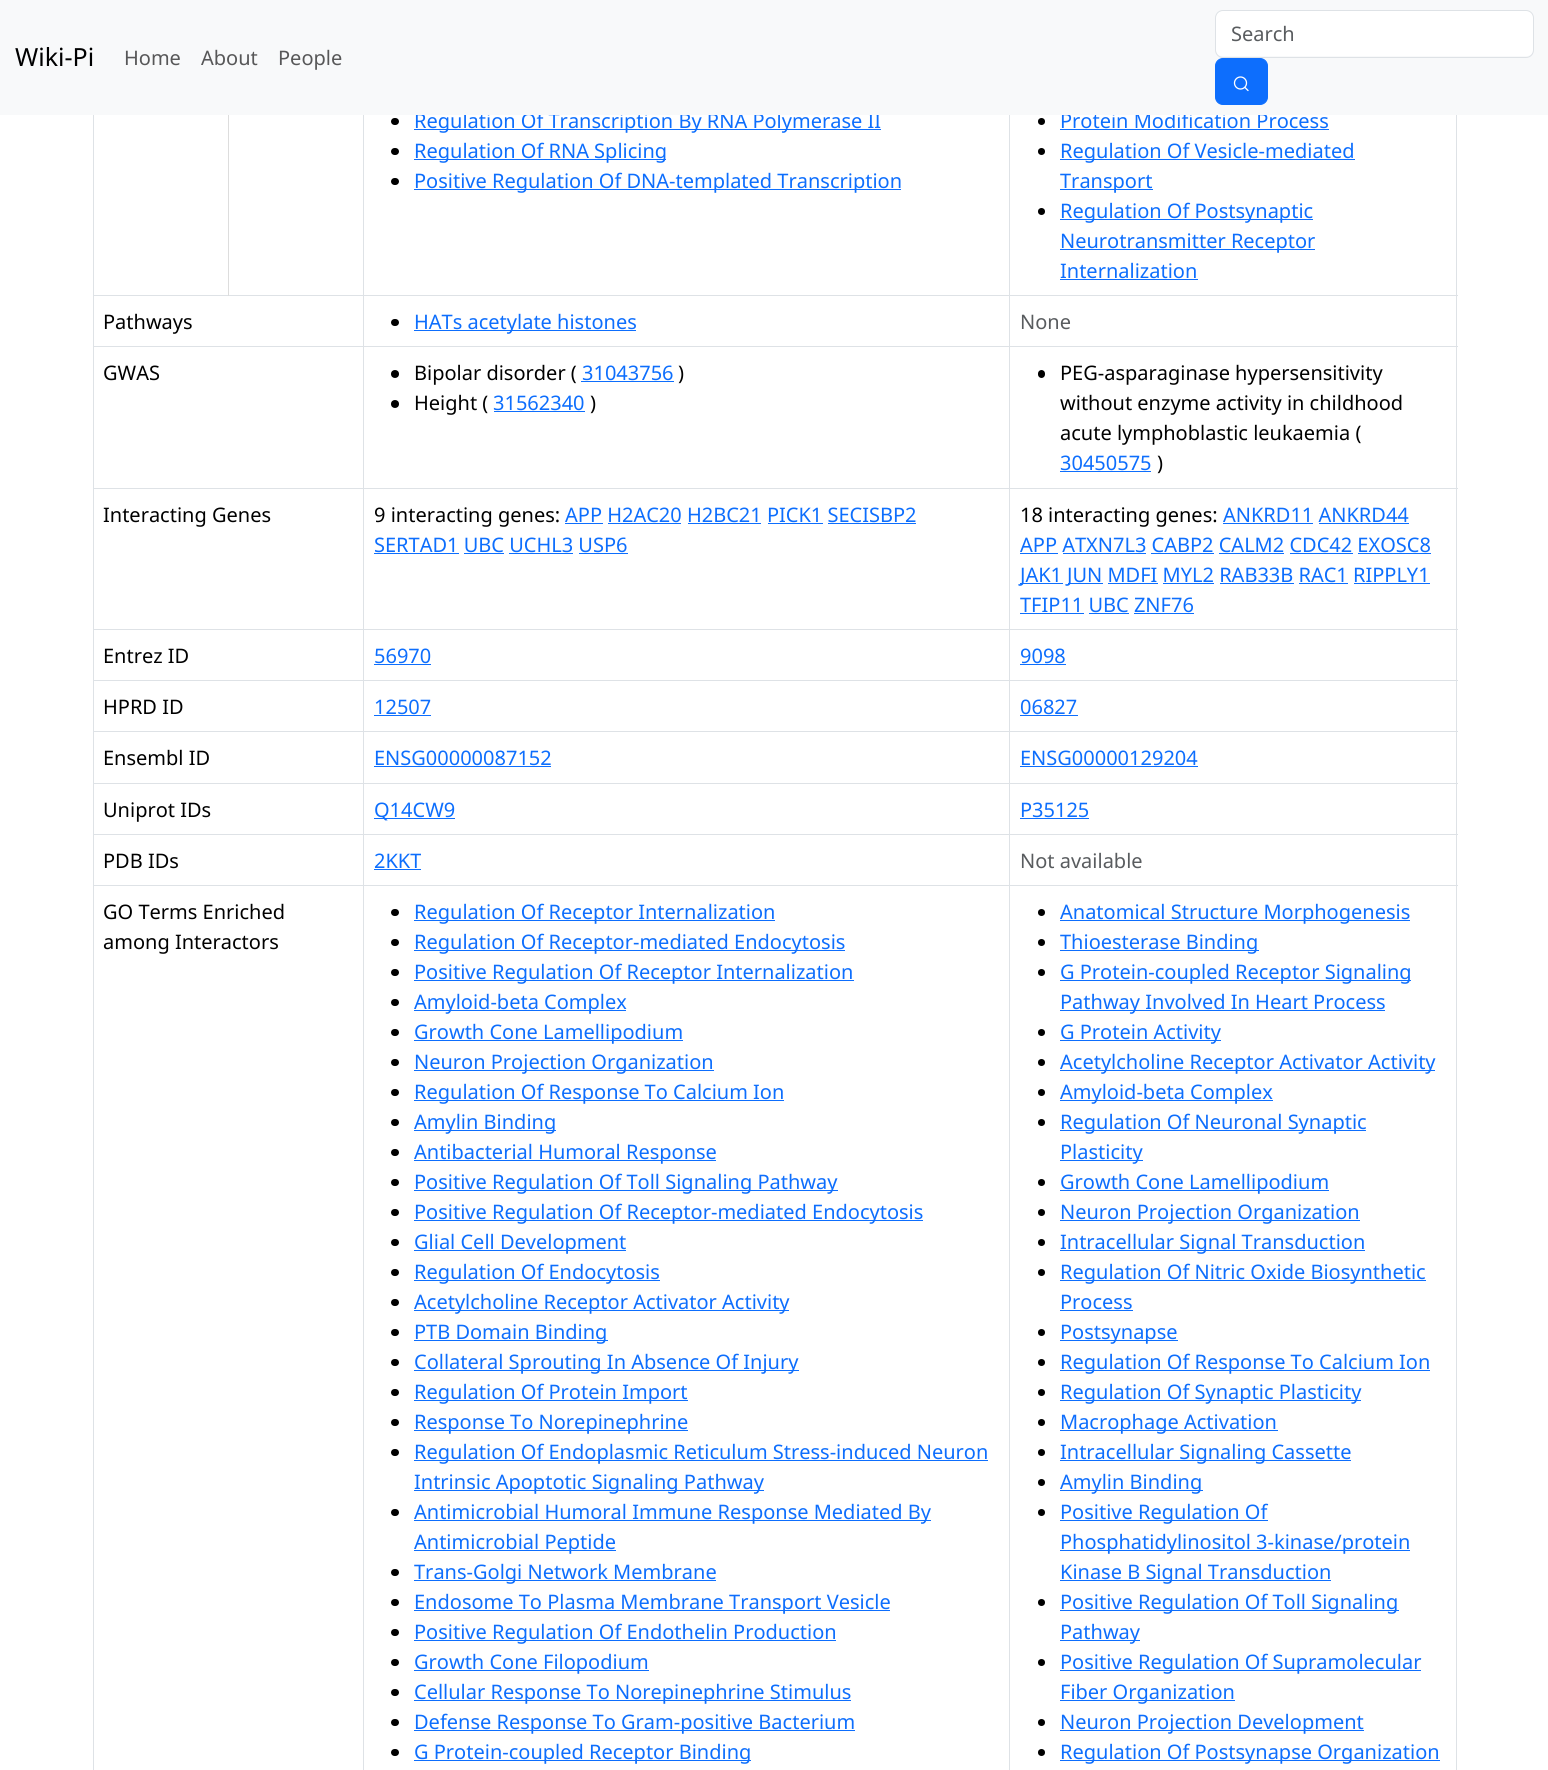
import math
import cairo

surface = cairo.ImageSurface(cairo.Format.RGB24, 1548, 1770)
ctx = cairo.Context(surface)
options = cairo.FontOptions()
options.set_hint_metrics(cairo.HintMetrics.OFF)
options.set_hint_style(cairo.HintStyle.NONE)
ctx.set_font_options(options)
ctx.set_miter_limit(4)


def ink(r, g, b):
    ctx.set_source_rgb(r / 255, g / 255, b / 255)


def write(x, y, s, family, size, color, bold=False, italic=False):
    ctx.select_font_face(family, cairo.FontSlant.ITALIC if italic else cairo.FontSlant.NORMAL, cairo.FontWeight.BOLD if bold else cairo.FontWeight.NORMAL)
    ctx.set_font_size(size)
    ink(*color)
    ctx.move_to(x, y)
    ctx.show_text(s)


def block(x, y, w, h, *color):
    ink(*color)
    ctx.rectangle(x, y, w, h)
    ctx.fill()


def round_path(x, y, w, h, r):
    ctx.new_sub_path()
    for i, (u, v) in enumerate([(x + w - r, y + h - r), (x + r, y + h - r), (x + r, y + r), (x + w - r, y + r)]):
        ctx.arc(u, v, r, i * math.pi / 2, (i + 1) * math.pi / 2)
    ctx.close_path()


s1 = dict(family="Noto Sans", size=20, color=(13, 110, 253))
s2 = dict(family="Noto Sans", size=25, color=(0, 0, 0))
s3 = dict(family="Noto Sans", size=20, color=(89, 92, 95))
s4 = dict(family="Noto Sans", size=20, color=(87, 87, 88))
s5 = dict(family="Noto Sans", size=20, color=(0, 0, 0))

ink(255, 255, 255)
ctx.paint()
block(414, 129, 467, 1, 13, 110, 253)
write(414, 128, "Regulation Of Transcription By RNA Polymerase II", **s1)
write(1060, 128, "Protein Modification Process", **s1)
block(0, 0, 1548, 115, 248, 249, 250)
write(15, 66, "Wiki-Pi", **s2)
ink(255, 255, 255)
round_path(1216, 11, 317, 45, 6)
ctx.fill()
round_path(1215.5, 10.5, 318, 47, 7.5)
ink(222, 226, 230)
ctx.set_line_width(1)
ctx.stroke()
write(1231, 41, "Search", **s3)
ink(13, 110, 253)
round_path(1215.5, 58.5, 52, 46, 7.5)
ctx.fill_preserve()
ctx.stroke()
ctx.arc(1240.5, 83, 6, 0, 2 * math.pi)
ink(255, 255, 255)
ctx.set_line_width(1.3)
ctx.stroke()
ctx.new_path()
ctx.move_to(1248, 90.5)
ctx.line_to(1245, 87.5)
ctx.set_line_cap(cairo.LineCap.ROUND)
ctx.stroke()
write(124, 65, "Home", **s4)
write(201, 65, "About", **s4)
write(278, 65, "People", **s4)
block(93, 295, 1365, 1, 222, 226, 230)
block(228, 115, 1, 181, 221, 221, 221)
ink(0, 0, 0)
round_path(391, 118, 8, 7, 3.5)
ctx.fill()
round_path(391, 148, 8, 7, 3.5)
ctx.fill()
block(414, 159, 252, 1, 13, 110, 253)
write(414, 158, "Regulation Of RNA Splicing", **s1)
ink(0, 0, 0)
round_path(391, 178, 8, 7, 3.5)
ctx.fill()
block(414, 189, 487, 1, 13, 110, 253)
write(414, 188, "Positive Regulation Of DNA-templated Transcription", **s1)
ink(0, 0, 0)
ctx.new_path()
ctx.arc(1041.5, 121.5, 3.5, 0, 2 * math.pi)
ctx.fill()
block(1060, 129, 269, 1, 13, 110, 253)
ink(0, 0, 0)
ctx.arc(1041.5, 151.5, 3.5, 0, 2 * math.pi)
ctx.fill()
block(1060, 159, 295, 1, 13, 110, 253)
write(1060, 158, "Regulation Of Vesicle-mediated", **s1)
block(1060, 189, 93, 1, 13, 110, 253)
write(1060, 188, "Transport", **s1)
ink(0, 0, 0)
ctx.new_path()
ctx.arc(1041.5, 211.5, 3.5, 0, 2 * math.pi)
ctx.fill()
block(1060, 219, 253, 1, 13, 110, 253)
write(1060, 218, "Regulation Of Postsynaptic", **s1)
block(1060, 249, 255, 1, 13, 110, 253)
write(1060, 248, "Neurotransmitter Receptor", **s1)
write(1060, 278, "Internalization", **s1)
block(1060, 279, 138, 1, 13, 110, 253)
write(103, 329, "Pathways", **s5)
round_path(391, 319, 8, 7, 3.5)
ctx.fill()
block(414, 330, 222, 1, 13, 110, 253)
write(414, 329, "HATs acetylate histones", **s1)
write(1020, 329, "None", **s3)
block(93, 346, 1365, 1, 222, 226, 230)
write(103, 380, "GWAS", **s5)
ctx.new_path()
ctx.arc(395, 374, 4, 0, 2 * math.pi)
ctx.fill()
write(414, 380, "Bipolar disorder (", **s5)
write(582, 380, "31043756", **s1)
block(581, 381, 93, 1, 13, 110, 253)
write(678, 380, ")", **s5)
ctx.new_path()
ctx.arc(395, 404, 4, 0, 2 * math.pi)
ctx.fill()
write(414, 410, "Height (", **s5)
write(493, 410, "31562340", **s1)
block(494, 411, 91, 1, 13, 110, 253)
write(590, 410, ")", **s5)
round_path(1038, 370, 7, 8, 3.5)
ctx.fill()
write(1060, 380, "PEG-asparaginase hypersensitivity", **s5)
write(1060, 410, "without enzyme activity in childhood", **s5)
write(1060, 440, "acute lymphoblastic leukaemia (", **s5)
write(1060, 470, "30450575", **s1)
block(1060, 471, 91, 1, 13, 110, 253)
write(1157, 470, ")", **s5)
block(93, 488, 1365, 1, 222, 226, 230)
write(103, 522, "Interacting Genes", **s5)
write(374, 522, "9 interacting genes:", **s5)
write(565, 522, "APP H2AC20 H2BC21 PICK1 SECISBP2", **s1)
block(565, 523, 38, 1, 13, 110, 253)
block(608, 523, 73, 1, 13, 110, 253)
block(688, 523, 73, 1, 13, 110, 253)
block(768, 523, 55, 1, 13, 110, 253)
block(828, 523, 88, 1, 13, 110, 253)
write(374, 552, "SERTAD1 UBC UCHL3 USP6", **s1)
block(374, 553, 85, 1, 13, 110, 253)
block(464, 553, 40, 1, 13, 110, 253)
block(509, 553, 64, 1, 13, 110, 253)
block(579, 553, 49, 1, 13, 110, 253)
write(1020, 522, "18 interacting genes:", **s5)
write(1223, 522, "ANKRD11 ANKRD44", **s1)
block(1223, 523, 90, 1, 13, 110, 253)
block(1319, 523, 90, 1, 13, 110, 253)
write(1020, 552, "APP ATXN7L3 CABP2 CALM2 CDC42 EXOSC8", **s1)
block(1020, 553, 38, 1, 13, 110, 253)
block(1063, 553, 83, 1, 13, 110, 253)
block(1151, 553, 63, 1, 13, 110, 253)
block(1219, 553, 65, 1, 13, 110, 253)
block(1290, 553, 63, 1, 13, 110, 253)
block(1358, 553, 73, 1, 13, 110, 253)
block(1020, 583, 43, 1, 13, 110, 253)
write(1020, 582, "JAK1", **s1)
block(1068, 583, 35, 1, 13, 110, 253)
write(1067, 582, "JUN MDFI MYL2 RAB33B RAC1 RIPPLY1", **s1)
block(1108, 583, 50, 1, 13, 110, 253)
block(1163, 583, 51, 1, 13, 110, 253)
block(1220, 583, 74, 1, 13, 110, 253)
block(1299, 583, 49, 1, 13, 110, 253)
block(1354, 583, 76, 1, 13, 110, 253)
write(1020, 612, "TFIP11 UBC ZNF76", **s1)
block(1020, 613, 64, 1, 13, 110, 253)
block(1089, 613, 40, 1, 13, 110, 253)
block(1134, 613, 60, 1, 13, 110, 253)
block(93, 629, 1365, 1, 222, 226, 230)
write(103, 663, "Entrez ID", **s5)
write(374, 663, "56970", **s1)
block(374, 664, 57, 1, 13, 110, 253)
write(1020, 663, "9098", **s1)
block(1020, 664, 46, 1, 13, 110, 253)
block(93, 680, 1365, 1, 222, 226, 230)
write(103, 714, "HPRD ID", **s5)
write(374, 714, "12507", **s1)
block(374, 715, 57, 1, 13, 110, 253)
write(1020, 714, "06827", **s1)
block(1020, 715, 58, 1, 13, 110, 253)
block(93, 731, 1365, 1, 222, 226, 230)
write(103, 765, "Ensembl ID", **s5)
write(374, 765, "ENSG00000087152", **s1)
block(374, 766, 177, 1, 13, 110, 253)
write(1020, 765, "ENSG00000129204", **s1)
block(1020, 766, 178, 1, 13, 110, 253)
block(93, 783, 1365, 1, 222, 226, 230)
write(103, 817, "Uniprot IDs", **s5)
block(374, 818, 81, 1, 13, 110, 253)
write(374, 817, "Q14CW9", **s1)
write(1020, 817, "P35125", **s1)
block(1020, 818, 69, 1, 13, 110, 253)
block(93, 834, 1365, 1, 222, 226, 230)
write(103, 868, "PDB IDs", **s5)
write(374, 868, "2KKT", **s1)
block(374, 869, 47, 1, 13, 110, 253)
write(1020, 868, "Not available", **s3)
block(93, 885, 1365, 1, 222, 226, 230)
block(93, 115, 1, 1655, 222, 226, 230)
write(103, 919, "GO Terms Enriched", **s5)
write(103, 949, "among Interactors", **s5)
block(363, 115, 1, 1655, 222, 226, 230)
ink(0, 0, 0)
round_path(391, 909, 8, 7, 3.5)
ctx.fill()
block(414, 920, 361, 1, 13, 110, 253)
write(414, 919, "Regulation Of Receptor Internalization", **s1)
ink(0, 0, 0)
round_path(391, 939, 8, 7, 3.5)
ctx.fill()
block(414, 950, 431, 1, 13, 110, 253)
write(414, 949, "Regulation Of Receptor-mediated Endocytosis", **s1)
ink(0, 0, 0)
round_path(391, 969, 8, 7, 3.5)
ctx.fill()
block(414, 980, 440, 1, 13, 110, 253)
write(414, 979, "Positive Regulation Of Receptor Internalization", **s1)
ink(0, 0, 0)
round_path(391, 999, 8, 7, 3.5)
ctx.fill()
block(414, 1010, 212, 1, 13, 110, 253)
write(414, 1009, "Amyloid-beta Complex", **s1)
ink(0, 0, 0)
round_path(391, 1029, 8, 7, 3.5)
ctx.fill()
block(414, 1040, 269, 1, 13, 110, 253)
write(414, 1039, "Growth Cone Lamellipodium", **s1)
ink(0, 0, 0)
round_path(391, 1059, 8, 7, 3.5)
ctx.fill()
block(414, 1070, 300, 1, 13, 110, 253)
write(414, 1069, "Neuron Projection Organization", **s1)
ink(0, 0, 0)
round_path(391, 1089, 8, 7, 3.5)
ctx.fill()
block(414, 1100, 370, 1, 13, 110, 253)
write(414, 1099, "Regulation Of Response To Calcium Ion", **s1)
ink(0, 0, 0)
round_path(391, 1119, 8, 7, 3.5)
ctx.fill()
block(414, 1130, 142, 1, 13, 110, 253)
write(414, 1129, "Amylin Binding", **s1)
ink(0, 0, 0)
round_path(391, 1149, 8, 7, 3.5)
ctx.fill()
block(414, 1160, 302, 1, 13, 110, 253)
write(414, 1159, "Antibacterial Humoral Response", **s1)
ink(0, 0, 0)
round_path(391, 1179, 8, 7, 3.5)
ctx.fill()
block(414, 1190, 424, 1, 13, 110, 253)
write(414, 1189, "Positive Regulation Of Toll Signaling Pathway", **s1)
ink(0, 0, 0)
round_path(391, 1209, 8, 7, 3.5)
ctx.fill()
block(414, 1220, 509, 1, 13, 110, 253)
write(414, 1219, "Positive Regulation Of Receptor-mediated Endocytosis", **s1)
ink(0, 0, 0)
round_path(391, 1239, 8, 7, 3.5)
ctx.fill()
block(414, 1250, 212, 1, 13, 110, 253)
write(414, 1249, "Glial Cell Development", **s1)
ink(0, 0, 0)
round_path(391, 1269, 8, 7, 3.5)
ctx.fill()
block(414, 1280, 246, 1, 13, 110, 253)
write(414, 1279, "Regulation Of Endocytosis", **s1)
ink(0, 0, 0)
round_path(391, 1299, 8, 7, 3.5)
ctx.fill()
block(414, 1310, 375, 1, 13, 110, 253)
write(414, 1309, "Acetylcholine Receptor Activator Activity", **s1)
ink(0, 0, 0)
round_path(391, 1329, 8, 7, 3.5)
ctx.fill()
block(414, 1340, 194, 1, 13, 110, 253)
write(414, 1339, "PTB Domain Binding", **s1)
ink(0, 0, 0)
round_path(391, 1359, 8, 7, 3.5)
ctx.fill()
block(414, 1370, 385, 1, 13, 110, 253)
write(414, 1369, "Collateral Sprouting In Absence Of Injury", **s1)
ink(0, 0, 0)
round_path(391, 1389, 8, 7, 3.5)
ctx.fill()
block(414, 1400, 274, 1, 13, 110, 253)
write(414, 1399, "Regulation Of Protein Import", **s1)
ink(0, 0, 0)
round_path(391, 1419, 8, 7, 3.5)
ctx.fill()
block(414, 1430, 274, 1, 13, 110, 253)
write(414, 1429, "Response To Norepinephrine", **s1)
ink(0, 0, 0)
round_path(391, 1449, 8, 7, 3.5)
ctx.fill()
block(414, 1460, 574, 1, 13, 110, 253)
write(414, 1459, "Regulation Of Endoplasmic Reticulum Stress-induced Neuron", **s1)
block(414, 1490, 350, 1, 13, 110, 253)
write(414, 1489, "Intrinsic Apoptotic Signaling Pathway", **s1)
ink(0, 0, 0)
round_path(391, 1509, 8, 7, 3.5)
ctx.fill()
block(414, 1520, 517, 1, 13, 110, 253)
write(414, 1519, "Antimicrobial Humoral Immune Response Mediated By", **s1)
block(414, 1550, 202, 1, 13, 110, 253)
write(414, 1549, "Antimicrobial Peptide", **s1)
ink(0, 0, 0)
round_path(391, 1569, 8, 7, 3.5)
ctx.fill()
block(414, 1580, 302, 1, 13, 110, 253)
write(414, 1579, "Trans-Golgi Network Membrane", **s1)
ink(0, 0, 0)
round_path(391, 1599, 8, 7, 3.5)
ctx.fill()
block(414, 1610, 476, 1, 13, 110, 253)
write(414, 1609, "Endosome To Plasma Membrane Transport Vesicle", **s1)
ink(0, 0, 0)
round_path(391, 1629, 8, 7, 3.5)
ctx.fill()
block(414, 1640, 422, 1, 13, 110, 253)
write(414, 1639, "Positive Regulation Of Endothelin Production", **s1)
ink(0, 0, 0)
round_path(391, 1659, 8, 7, 3.5)
ctx.fill()
block(414, 1670, 235, 1, 13, 110, 253)
write(414, 1669, "Growth Cone Filopodium", **s1)
ink(0, 0, 0)
round_path(391, 1689, 8, 7, 3.5)
ctx.fill()
block(414, 1700, 437, 1, 13, 110, 253)
write(414, 1699, "Cellular Response To Norepinephrine Stimulus", **s1)
ink(0, 0, 0)
round_path(391, 1719, 8, 7, 3.5)
ctx.fill()
block(414, 1730, 441, 1, 13, 110, 253)
write(414, 1729, "Defense Response To Gram-positive Bacterium", **s1)
ink(0, 0, 0)
round_path(391, 1749, 8, 7, 3.5)
ctx.fill()
block(414, 1760, 337, 1, 13, 110, 253)
write(414, 1759, "G Protein-coupled Receptor Binding", **s1)
block(1456, 115, 1, 1655, 222, 226, 230)
block(1009, 115, 1, 1655, 222, 226, 230)
ink(0, 0, 0)
ctx.new_path()
ctx.arc(1041.5, 912.5, 3.5, 0, 2 * math.pi)
ctx.fill()
block(1060, 920, 350, 1, 13, 110, 253)
write(1060, 919, "Anatomical Structure Morphogenesis", **s1)
ink(0, 0, 0)
ctx.new_path()
ctx.arc(1041.5, 942.5, 3.5, 0, 2 * math.pi)
ctx.fill()
block(1060, 950, 199, 1, 13, 110, 253)
write(1060, 949, "Thioesterase Binding", **s1)
ink(0, 0, 0)
ctx.new_path()
ctx.arc(1041.5, 972.5, 3.5, 0, 2 * math.pi)
ctx.fill()
block(1060, 980, 351, 1, 13, 110, 253)
write(1060, 979, "G Protein-coupled Receptor Signaling", **s1)
block(1060, 1010, 325, 1, 13, 110, 253)
write(1060, 1009, "Pathway Involved In Heart Process", **s1)
ink(0, 0, 0)
ctx.new_path()
ctx.arc(1041.5, 1032.5, 3.5, 0, 2 * math.pi)
ctx.fill()
block(1060, 1040, 161, 1, 13, 110, 253)
write(1060, 1039, "G Protein Activity", **s1)
ink(0, 0, 0)
ctx.new_path()
ctx.arc(1041.5, 1062.5, 3.5, 0, 2 * math.pi)
ctx.fill()
block(1060, 1070, 375, 1, 13, 110, 253)
write(1060, 1069, "Acetylcholine Receptor Activator Activity", **s1)
ink(0, 0, 0)
ctx.new_path()
ctx.arc(1041.5, 1092.5, 3.5, 0, 2 * math.pi)
ctx.fill()
block(1060, 1100, 213, 1, 13, 110, 253)
write(1060, 1099, "Amyloid-beta Complex", **s1)
ink(0, 0, 0)
ctx.new_path()
ctx.arc(1041.5, 1122.5, 3.5, 0, 2 * math.pi)
ctx.fill()
block(1060, 1130, 306, 1, 13, 110, 253)
write(1060, 1129, "Regulation Of Neuronal Synaptic", **s1)
block(1060, 1160, 83, 1, 13, 110, 253)
write(1060, 1159, "Plasticity", **s1)
ink(0, 0, 0)
ctx.new_path()
ctx.arc(1041.5, 1182.5, 3.5, 0, 2 * math.pi)
ctx.fill()
block(1060, 1190, 269, 1, 13, 110, 253)
write(1060, 1189, "Growth Cone Lamellipodium", **s1)
ink(0, 0, 0)
ctx.new_path()
ctx.arc(1041.5, 1212.5, 3.5, 0, 2 * math.pi)
ctx.fill()
block(1060, 1220, 300, 1, 13, 110, 253)
write(1060, 1219, "Neuron Projection Organization", **s1)
ink(0, 0, 0)
ctx.new_path()
ctx.arc(1041.5, 1242.5, 3.5, 0, 2 * math.pi)
ctx.fill()
block(1060, 1250, 305, 1, 13, 110, 253)
write(1060, 1249, "Intracellular Signal Transduction", **s1)
ink(0, 0, 0)
ctx.new_path()
ctx.arc(1041.5, 1272.5, 3.5, 0, 2 * math.pi)
ctx.fill()
block(1060, 1280, 366, 1, 13, 110, 253)
write(1060, 1279, "Regulation Of Nitric Oxide Biosynthetic", **s1)
write(1060, 1309, "Process", **s1)
block(1060, 1310, 73, 1, 13, 110, 253)
ink(0, 0, 0)
ctx.new_path()
ctx.arc(1041.5, 1332.5, 3.5, 0, 2 * math.pi)
ctx.fill()
block(1060, 1340, 118, 1, 13, 110, 253)
write(1060, 1339, "Postsynapse", **s1)
ink(0, 0, 0)
ctx.new_path()
ctx.arc(1041.5, 1362.5, 3.5, 0, 2 * math.pi)
ctx.fill()
block(1060, 1370, 370, 1, 13, 110, 253)
write(1060, 1369, "Regulation Of Response To Calcium Ion", **s1)
ink(0, 0, 0)
ctx.new_path()
ctx.arc(1041.5, 1392.5, 3.5, 0, 2 * math.pi)
ctx.fill()
block(1060, 1400, 301, 1, 13, 110, 253)
write(1060, 1399, "Regulation Of Synaptic Plasticity", **s1)
ink(0, 0, 0)
ctx.new_path()
ctx.arc(1041.5, 1422.5, 3.5, 0, 2 * math.pi)
ctx.fill()
block(1060, 1430, 218, 1, 13, 110, 253)
write(1060, 1429, "Macrophage Activation", **s1)
ink(0, 0, 0)
ctx.new_path()
ctx.arc(1041.5, 1452.5, 3.5, 0, 2 * math.pi)
ctx.fill()
block(1060, 1460, 291, 1, 13, 110, 253)
write(1060, 1459, "Intracellular Signaling Cassette", **s1)
ink(0, 0, 0)
ctx.new_path()
ctx.arc(1041.5, 1482.5, 3.5, 0, 2 * math.pi)
ctx.fill()
block(1060, 1490, 143, 1, 13, 110, 253)
write(1060, 1489, "Amylin Binding", **s1)
ink(0, 0, 0)
ctx.new_path()
ctx.arc(1041.5, 1512.5, 3.5, 0, 2 * math.pi)
ctx.fill()
block(1060, 1520, 208, 1, 13, 110, 253)
write(1060, 1519, "Positive Regulation Of", **s1)
block(1060, 1550, 350, 1, 13, 110, 253)
write(1060, 1549, "Phosphatidylinositol 3-kinase/protein", **s1)
block(1060, 1580, 271, 1, 13, 110, 253)
write(1060, 1579, "Kinase B Signal Transduction", **s1)
ink(0, 0, 0)
ctx.new_path()
ctx.arc(1041.5, 1602.5, 3.5, 0, 2 * math.pi)
ctx.fill()
block(1060, 1610, 339, 1, 13, 110, 253)
write(1060, 1609, "Positive Regulation Of Toll Signaling", **s1)
block(1060, 1640, 80, 1, 13, 110, 253)
write(1060, 1639, "Pathway", **s1)
ink(0, 0, 0)
ctx.new_path()
ctx.arc(1041.5, 1662.5, 3.5, 0, 2 * math.pi)
ctx.fill()
block(1060, 1670, 361, 1, 13, 110, 253)
write(1060, 1669, "Positive Regulation Of Supramolecular", **s1)
block(1060, 1700, 175, 1, 13, 110, 253)
write(1060, 1699, "Fiber Organization", **s1)
ink(0, 0, 0)
ctx.new_path()
ctx.arc(1041.5, 1722.5, 3.5, 0, 2 * math.pi)
ctx.fill()
block(1060, 1730, 304, 1, 13, 110, 253)
write(1060, 1729, "Neuron Projection Development", **s1)
ink(0, 0, 0)
ctx.new_path()
ctx.arc(1041.5, 1752.5, 3.5, 0, 2 * math.pi)
ctx.fill()
block(1060, 1760, 380, 1, 13, 110, 253)
write(1060, 1759, "Regulation Of Postsynapse Organization", **s1)
surface.write_to_png("screenshot.png")
